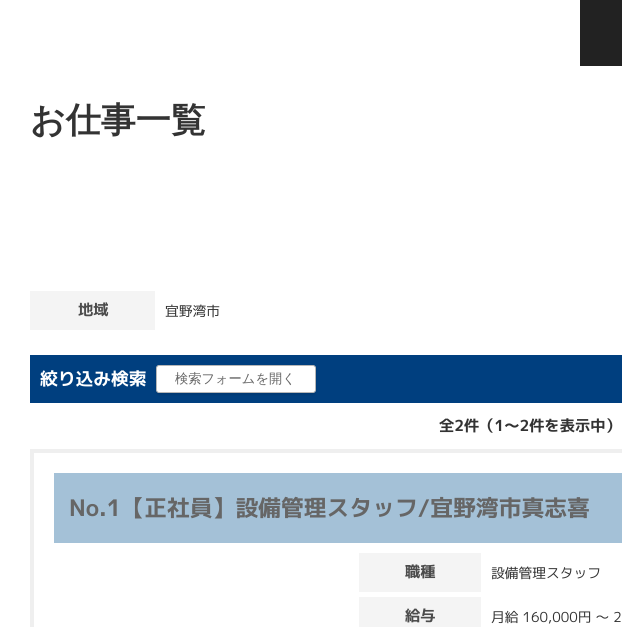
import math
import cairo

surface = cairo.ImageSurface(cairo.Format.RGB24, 622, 627)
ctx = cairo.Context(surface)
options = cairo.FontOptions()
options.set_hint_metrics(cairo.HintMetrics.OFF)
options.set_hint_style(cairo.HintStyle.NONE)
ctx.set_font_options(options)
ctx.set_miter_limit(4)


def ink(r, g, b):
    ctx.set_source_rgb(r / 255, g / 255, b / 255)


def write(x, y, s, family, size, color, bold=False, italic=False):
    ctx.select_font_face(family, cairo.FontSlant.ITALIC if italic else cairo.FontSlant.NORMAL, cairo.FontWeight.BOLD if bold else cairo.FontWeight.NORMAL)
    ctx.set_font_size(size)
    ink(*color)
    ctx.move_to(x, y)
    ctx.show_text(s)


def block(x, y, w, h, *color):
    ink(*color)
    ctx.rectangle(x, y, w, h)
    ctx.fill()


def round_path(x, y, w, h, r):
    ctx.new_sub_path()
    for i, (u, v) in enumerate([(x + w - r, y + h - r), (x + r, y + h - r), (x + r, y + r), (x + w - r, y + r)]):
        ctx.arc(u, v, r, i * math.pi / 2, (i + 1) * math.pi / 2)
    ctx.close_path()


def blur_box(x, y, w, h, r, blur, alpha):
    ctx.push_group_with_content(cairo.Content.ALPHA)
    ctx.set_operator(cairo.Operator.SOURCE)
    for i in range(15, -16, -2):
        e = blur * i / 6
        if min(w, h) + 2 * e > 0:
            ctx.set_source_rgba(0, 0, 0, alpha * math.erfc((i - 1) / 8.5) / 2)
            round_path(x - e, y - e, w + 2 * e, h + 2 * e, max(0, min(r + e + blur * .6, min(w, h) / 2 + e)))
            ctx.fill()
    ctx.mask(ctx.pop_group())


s1 = dict(family="WenQuanYi Zen Hei", size=35, color=(51, 51, 51), bold=True)
s2 = dict(family="M PLUS 1p", size=15.25, color=(76, 76, 76), bold=True)
s3 = dict(family="M PLUS 1p", size=13.75, color=(51, 51, 51))
s4 = dict(family="M PLUS 1p", size=17.75, color=(255, 255, 255), bold=True)
s5 = dict(family="WenQuanYi Zen Hei Medium", size=13.25, color=(102, 102, 102))
s6 = dict(family="M PLUS 1p", size=15.25, color=(51, 51, 51), bold=True)
s7 = dict(family="M PLUS 1p", size=22.8, color=(102, 102, 102), bold=True)

ink(255, 255, 255)
ctx.paint()
block(580, 0, 42, 66, 34, 34, 34)
write(30, 132, "お仕事一覧", **s1)
block(30, 291, 125, 39, 244, 244, 244)
write(78, 315, "地域", **s2)
write(165, 316, "宜野湾市", **s3)
block(30, 355, 592, 48, 0, 63, 127)
write(40, 385, "絞り込み検索", **s4)
ink(0, 0, 0)
blur_box(156, 367, 160, 28, 3, 1, 0.1)
ink(255, 255, 255)
round_path(156.5, 365.5, 159, 27, 2.5)
ctx.fill_preserve()
ink(183, 183, 183)
ctx.set_line_width(1)
ctx.stroke()
write(175, 383, "検索フォームを開く", **s5)
write(439, 431, "全2件（1〜2件を表示中）", **s6)
ctx.rectangle(32, 451, 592, 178)
ink(239, 239, 239)
ctx.set_line_width(4)
ctx.stroke()
block(54, 473, 568, 70, 164, 193, 215)
write(69, 516, "No.1【正社員】設備管理スタッフ/宜野湾市真志喜", **s7)
block(359, 553, 122, 39, 244, 244, 244)
write(405, 577, "職種", **s2)
write(491, 578, "設備管理スタッフ", **s3)
block(359, 597, 122, 30, 244, 244, 244)
write(405, 621, "給与", **s2)
write(491, 622, "月給 160,000円 〜 2", **s3)
surface.write_to_png("screenshot.png")
